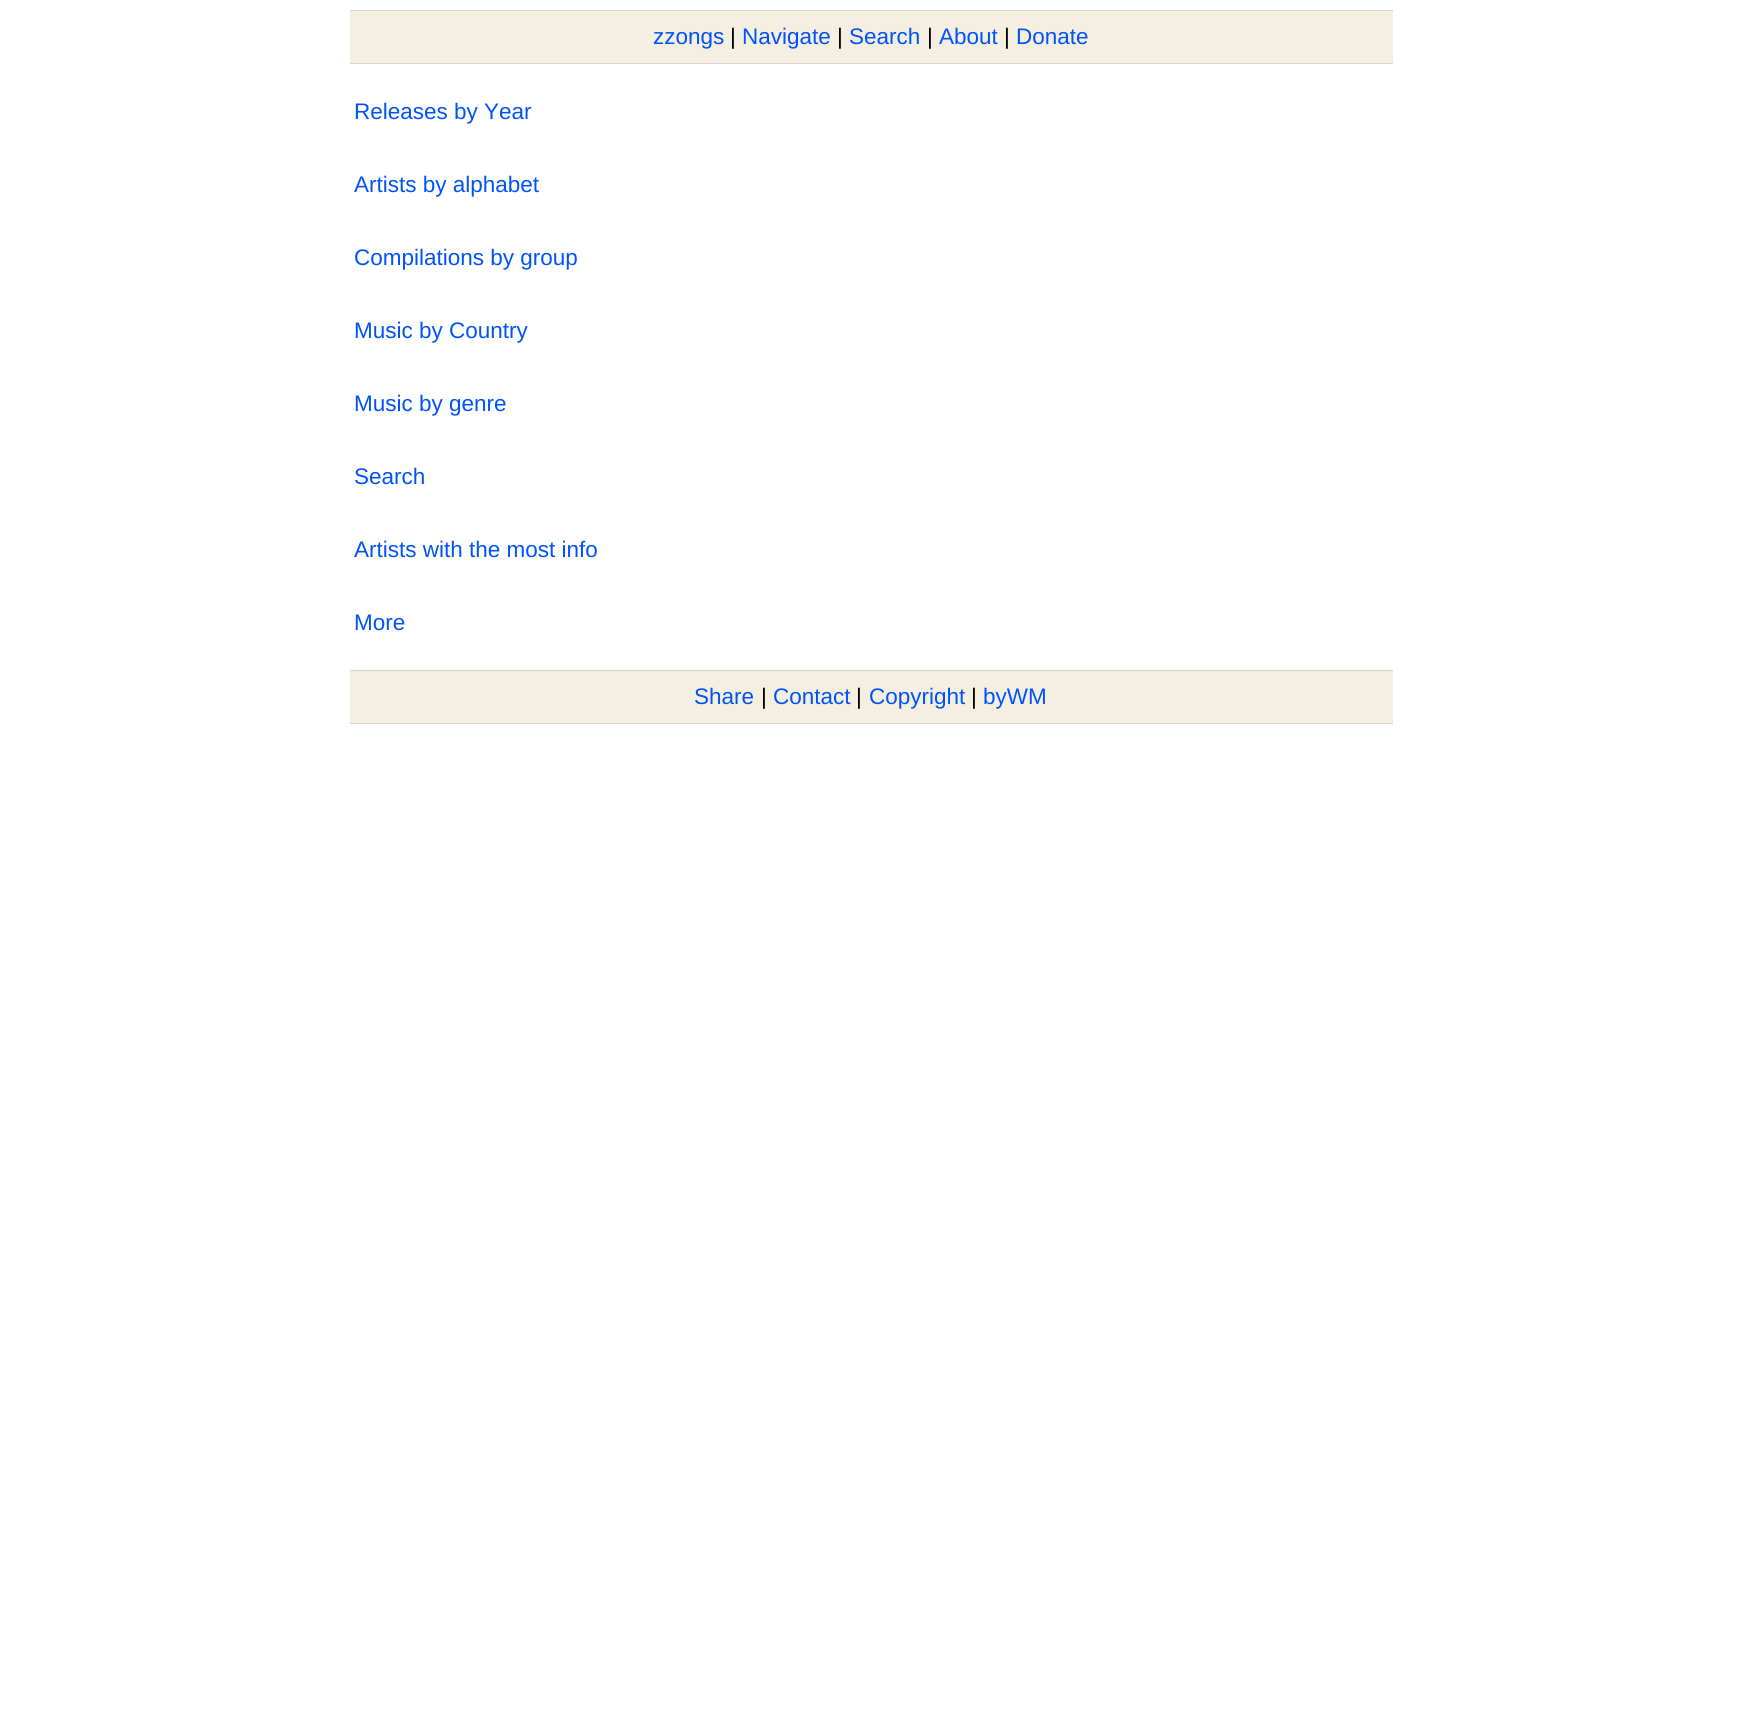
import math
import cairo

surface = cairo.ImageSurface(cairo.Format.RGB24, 1741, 1718)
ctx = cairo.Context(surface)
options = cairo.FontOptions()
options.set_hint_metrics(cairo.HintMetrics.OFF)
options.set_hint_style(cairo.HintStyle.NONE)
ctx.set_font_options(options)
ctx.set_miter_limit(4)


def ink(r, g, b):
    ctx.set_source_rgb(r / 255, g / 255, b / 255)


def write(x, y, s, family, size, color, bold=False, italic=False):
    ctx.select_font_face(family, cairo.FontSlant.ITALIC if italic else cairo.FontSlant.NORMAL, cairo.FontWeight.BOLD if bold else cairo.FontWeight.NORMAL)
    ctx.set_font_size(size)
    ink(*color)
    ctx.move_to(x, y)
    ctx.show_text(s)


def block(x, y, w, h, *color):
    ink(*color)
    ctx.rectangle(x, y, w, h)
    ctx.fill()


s1 = dict(family="Liberation Sans", size=22.5, color=(0, 83, 249))
s2 = dict(family="Liberation Sans", size=22.5, color=(0, 0, 0))

ink(255, 255, 255)
ctx.paint()
block(350, 11, 1043, 52, 245, 239, 225)
block(350, 10, 1043, 1, 212, 212, 212)
block(350, 63, 1043, 1, 212, 212, 212)
write(653, 44, "zzongs", **s1)
write(730, 44, "|", **s2)
write(742, 44, "Navigate", **s1)
write(837, 44, "|", **s2)
write(849, 44, "Search", **s1)
write(927, 44, "|", **s2)
write(939, 44, "About", **s1)
write(1004, 44, "|", **s2)
write(1016, 44, "Donate", **s1)
write(354, 119, "Releases by Year", **s1)
write(354, 192, "Artists by alphabet", **s1)
write(354, 265, "Compilations by group", **s1)
write(354, 338, "Music by Country", **s1)
write(354, 411, "Music by genre", **s1)
write(354, 484, "Search", **s1)
write(354, 557, "Artists with the most info", **s1)
write(354, 630, "More", **s1)
block(350, 671, 1043, 52, 245, 239, 225)
block(350, 670, 1043, 1, 212, 212, 212)
block(350, 723, 1043, 1, 212, 212, 212)
write(694, 704, "Share", **s1)
write(761, 704, "|", **s2)
write(773, 704, "Contact", **s1)
write(856, 704, "|", **s2)
write(869, 704, "Copyright", **s1)
write(971, 704, "|", **s2)
write(983, 704, "byWM", **s1)
surface.write_to_png("screenshot.png")
